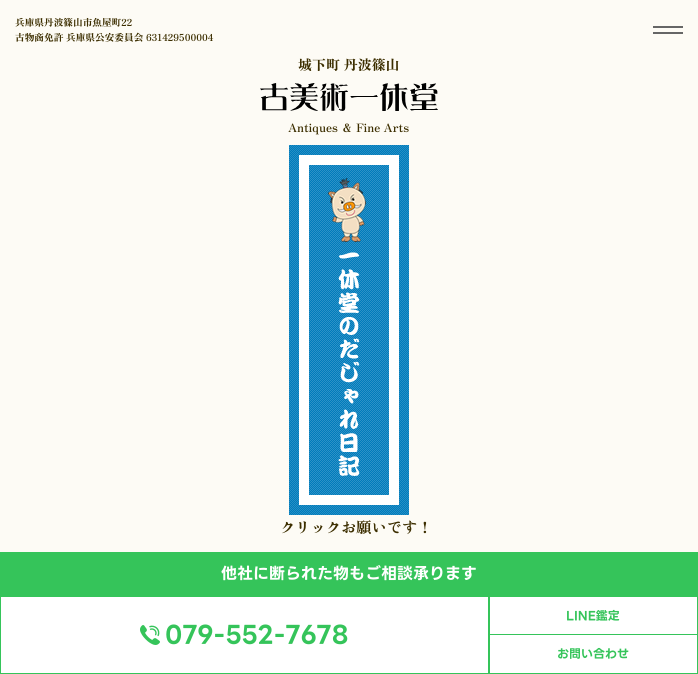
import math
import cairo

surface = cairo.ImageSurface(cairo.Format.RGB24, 698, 674)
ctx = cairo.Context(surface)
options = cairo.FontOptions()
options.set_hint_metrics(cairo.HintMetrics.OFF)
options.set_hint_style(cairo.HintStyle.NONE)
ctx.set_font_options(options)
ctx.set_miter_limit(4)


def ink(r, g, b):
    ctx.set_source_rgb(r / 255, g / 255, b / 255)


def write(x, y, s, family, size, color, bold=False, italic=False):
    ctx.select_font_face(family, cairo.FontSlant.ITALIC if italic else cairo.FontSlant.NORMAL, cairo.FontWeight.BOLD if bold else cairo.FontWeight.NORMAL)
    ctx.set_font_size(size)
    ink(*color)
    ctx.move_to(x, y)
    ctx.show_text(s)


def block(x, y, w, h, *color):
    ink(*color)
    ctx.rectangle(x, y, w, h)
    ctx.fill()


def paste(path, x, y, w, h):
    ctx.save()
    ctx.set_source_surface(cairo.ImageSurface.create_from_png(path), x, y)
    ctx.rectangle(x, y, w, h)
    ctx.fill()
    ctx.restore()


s1 = dict(family="Zen Antique", size=9.7, color=(60, 46, 0))
s2 = dict(family="Zen Antique", size=14, color=(60, 46, 0))
s3 = dict(family="Zen Antique", size=11.5, color=(60, 46, 0))
s4 = dict(family="Zen Antique", size=15.25, color=(60, 46, 0))
s5 = dict(family="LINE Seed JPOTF", size=16, color=(255, 255, 255), bold=True)
s6 = dict(family="LINE Seed JPOTF", size=24, color=(53, 196, 90), bold=True)
s7 = dict(family="LINE Seed JPOTF", size=12, color=(53, 196, 90), bold=True)

ink(253, 251, 245)
ctx.paint()
write(15, 26, "兵庫県丹波篠山市魚屋町22", **s1)
write(15, 41, "古物商免許 兵庫県公安委員会 631429500004", **s1)
write(298, 70, "城下町 丹波篠山", **s2)
paste("pic1.png", 260, 83, 178, 28)
write(288, 132, "Antiques ＆ Fine Arts", **s3)
block(653, 26, 30, 2, 102, 102, 102)
block(653, 32, 30, 2, 102, 102, 102)
paste("pic2.png", 289, 145, 120, 370)
write(280, 533, "クリックお願いです！", **s4)
block(0, 552, 698, 44, 53, 196, 90)
write(221, 579, "他社に断られた物もご相談承ります", **s5)
block(1, 597, 696, 76, 255, 255, 255)
ctx.rectangle(0.5, 596.5, 488, 77)
ink(53, 196, 90)
ctx.set_line_width(1)
ctx.stroke()
paste("pic3.png", 140, 625, 20, 20)
write(165, 643, "079-552-7678", **s6)
ctx.rectangle(489.5, 596.5, 208, 77)
ctx.stroke()
block(490, 634, 207, 1, 53, 196, 90)
write(566, 620, "LINE鑑定", **s7)
write(557, 658, "お問い合わせ", **s7)
surface.write_to_png("screenshot.png")
